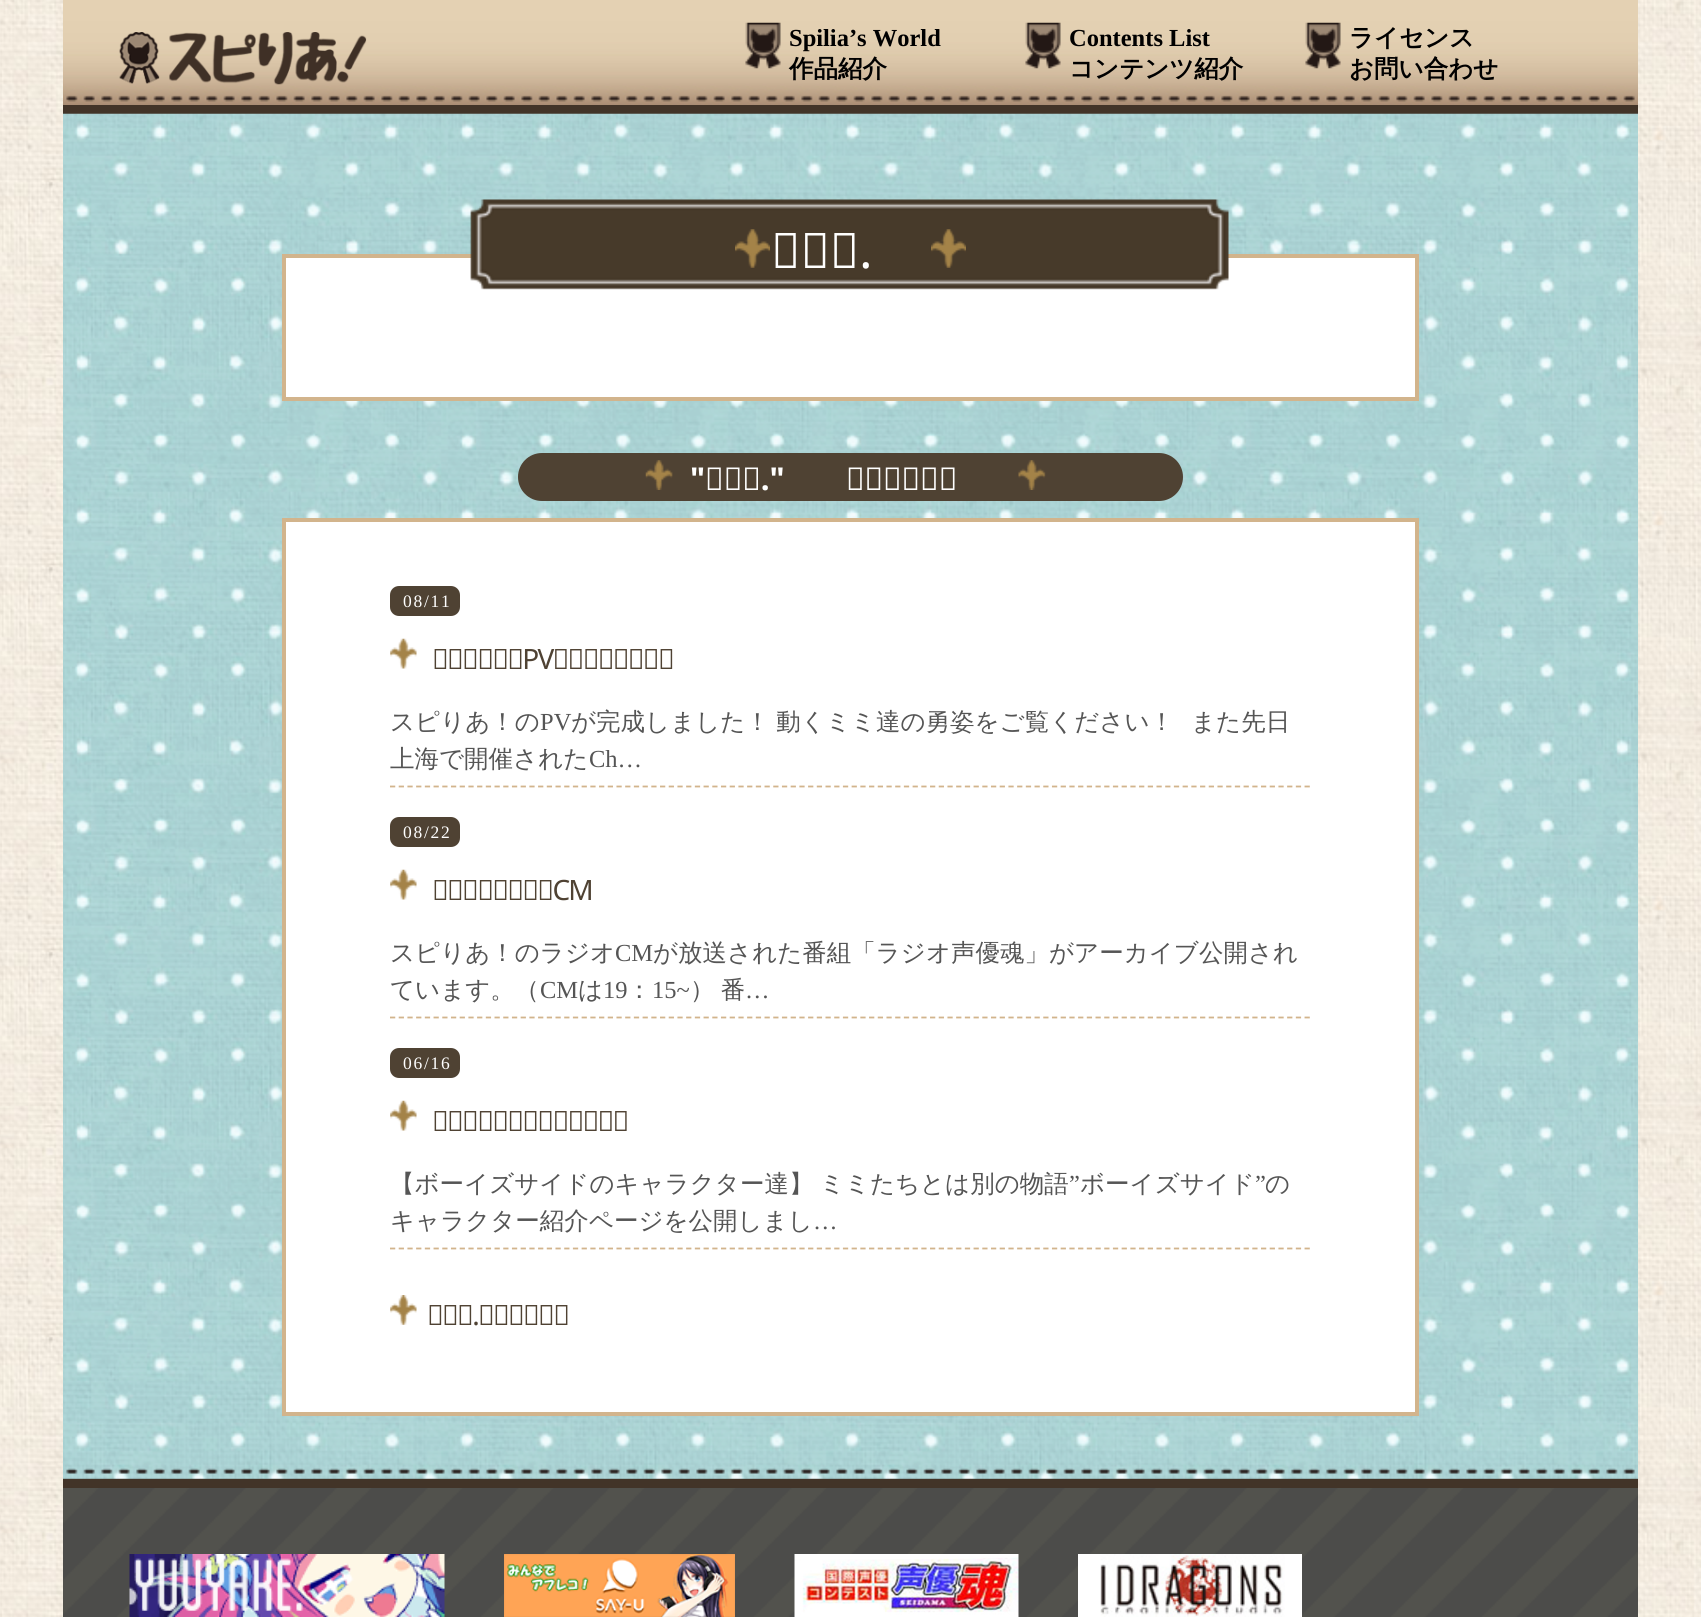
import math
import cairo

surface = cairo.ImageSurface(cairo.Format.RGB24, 1701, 1617)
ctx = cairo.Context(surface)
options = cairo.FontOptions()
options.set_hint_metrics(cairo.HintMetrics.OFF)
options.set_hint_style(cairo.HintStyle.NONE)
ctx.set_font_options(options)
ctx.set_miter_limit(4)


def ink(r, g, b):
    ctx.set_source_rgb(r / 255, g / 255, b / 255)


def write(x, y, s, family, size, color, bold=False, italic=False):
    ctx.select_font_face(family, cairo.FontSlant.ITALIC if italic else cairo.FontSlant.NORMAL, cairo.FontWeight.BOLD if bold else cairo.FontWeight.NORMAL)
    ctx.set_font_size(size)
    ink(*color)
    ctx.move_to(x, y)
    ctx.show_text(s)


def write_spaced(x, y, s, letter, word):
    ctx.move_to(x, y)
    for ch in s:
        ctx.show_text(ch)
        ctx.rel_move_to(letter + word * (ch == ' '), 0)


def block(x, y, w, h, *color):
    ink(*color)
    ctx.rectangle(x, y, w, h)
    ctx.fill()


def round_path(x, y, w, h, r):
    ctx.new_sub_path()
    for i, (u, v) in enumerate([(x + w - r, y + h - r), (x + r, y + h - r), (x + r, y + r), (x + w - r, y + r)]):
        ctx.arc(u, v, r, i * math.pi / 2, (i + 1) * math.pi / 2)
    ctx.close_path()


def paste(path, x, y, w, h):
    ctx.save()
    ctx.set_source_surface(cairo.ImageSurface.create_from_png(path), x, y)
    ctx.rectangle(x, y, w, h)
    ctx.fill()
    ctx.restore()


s1 = dict(family="Liberation Serif", size=24.5, color=(0, 0, 0), bold=True)
s2 = dict(family="WenQuanYi Zen Hei", size=24.5, color=(0, 0, 0), bold=True)
s3 = dict(family="Noto Sans", size=49, color=(255, 255, 255))
s4 = dict(family="WenQuanYi Zen Hei Medium", size=24.5, color=(85, 85, 85))
s5 = dict(family="Liberation Serif", size=24.5, color=(85, 85, 85))

ink(255, 255, 255)
ctx.paint()
paste("pic1.png", 0, 0, 1701, 1617)
paste("pic2.png", 63, 0, 1575, 105)
block(63, 105, 1575, 9, 66, 52, 40)
paste("pic3.png", 119, 32, 248, 53)
paste("pic4.png", 745, 22, 36, 47)
write(789, 46, "Spilia’s World", **s1)
write(789, 77, "作品紹介", **s2)
paste("pic5.png", 1025, 22, 36, 47)
write(1069, 46, "Contents List", **s1)
write(1069, 77, "コンテンツ紹介", **s2)
paste("pic6.png", 1305, 22, 36, 47)
write(1349, 46, "ライセンス", **s2)
write(1349, 77, "お問い合わせ", **s2)
paste("pic7.png", 63, 113, 1575, 1366)
ink(255, 255, 255)
ctx.rectangle(284, 256, 1133, 143)
ctx.fill_preserve()
ink(210, 180, 140)
ctx.set_line_width(4)
ctx.stroke()
paste("pic8.png", 470, 199, 759, 91)
paste("pic9.png", 735, 229, 35, 39)
write(771, 268, "声優魂.", **s3)
paste("pic10.png", 931, 229, 35, 39)
ink(79, 66, 51)
round_path(518, 453, 665, 48, 24)
ctx.fill()
paste("pic11.png", 645, 460, 28, 30)
ctx.select_font_face("Noto Sans", cairo.FontSlant.NORMAL, cairo.FontWeight.BOLD)
ctx.set_font_size(31.5)
ink(255, 255, 255)
write_spaced(690, 490, "\"声優魂.\" 新着ニュース", 0, 53)
paste("pic12.png", 1018, 460, 28, 30)
ctx.rectangle(284, 520, 1133, 894)
ctx.fill_preserve()
ink(210, 180, 140)
ctx.stroke()
ink(79, 66, 51)
round_path(390, 586, 70, 30, 9)
ctx.fill()
ctx.select_font_face("Liberation Serif")
ctx.set_font_size(17.5)
ink(255, 255, 255)
write_spaced(403, 607, "08/11", 1.75, 0)
paste("pic13.png", 390, 638, 27, 31)
ctx.select_font_face("Noto Sans")
ctx.set_font_size(28)
ink(79, 66, 51)
write_spaced(432, 669, "スピりあ！のPVを公開しました！", -1.75, 0)
ctx.new_path()
ctx.move_to(390, 786.5)
ctx.line_to(1311, 786.5)
ink(210, 180, 140)
ctx.set_line_width(1.8)
ctx.set_dash([5.25, 3.46])
ctx.stroke()
write(390, 730, "スピりあ！の", **s4)
write(540, 730, "PV", **s5)
ctx.select_font_face("WenQuanYi Zen Hei Medium")
write_spaced(571, 730, "が完成しました！ 動くミミ達の勇姿をご覧ください！", 0, -1)
write(1191, 730, "また先日", **s4)
write(390, 767, "上海で開催された", **s4)
write(589, 767, "Ch…", **s5)
ink(79, 66, 51)
round_path(390, 817, 70, 30, 9)
ctx.fill()
ctx.set_font_size(17.5)
ink(255, 255, 255)
write_spaced(403, 838, "08/22", 1.75, 0)
paste("pic13.png", 390, 869, 27, 31)
ctx.select_font_face("Noto Sans")
ctx.set_font_size(28)
ink(79, 66, 51)
write_spaced(432, 900, "スピりあ！ラジオCM", -1.75, 0)
ctx.new_path()
ctx.move_to(390, 1017.5)
ctx.line_to(1311, 1017.5)
ink(210, 180, 140)
ctx.stroke()
write(390, 961, "スピりあ！のラジオ", **s4)
write(615, 961, "CM", **s5)
write(653, 961, "が放送された番組「ラジオ声優魂」がアーカイブ公開され", **s4)
write(390, 998, "ています。（", **s4)
write(540, 998, "CM", **s5)
write(578, 998, "は", **s4)
write(603, 998, "19", **s5)
write(627, 998, "：", **s4)
write(652, 998, "15~", **s5)
ctx.select_font_face("WenQuanYi Zen Hei Medium")
write_spaced(690, 998, "） 番", 0, -1)
write(745, 998, "…", **s5)
ink(79, 66, 51)
round_path(390, 1048, 70, 30, 9)
ctx.fill()
ctx.set_font_size(17.5)
ink(255, 255, 255)
write_spaced(403, 1069, "06/16", 1.75, 0)
paste("pic13.png", 390, 1100, 27, 31)
ctx.select_font_face("Noto Sans")
ctx.set_font_size(28)
ink(79, 66, 51)
write_spaced(432, 1131, "キャラ紹介を追加しました！", -1.75, 0)
ctx.new_path()
ctx.move_to(390, 1248.5)
ctx.line_to(1311, 1248.5)
ink(210, 180, 140)
ctx.stroke()
ctx.select_font_face("WenQuanYi Zen Hei Medium")
ctx.set_font_size(24.5)
ink(85, 85, 85)
write_spaced(390, 1192, "【ボーイズサイドのキャラクター達】 ミミたちとは別の物語", 0, -1)
write(1069, 1192, "”", **s5)
write(1080, 1192, "ボーイズサイド", **s4)
write(1255, 1192, "”", **s5)
write(1265, 1192, "の", **s4)
write(390, 1229, "キャラクター紹介ページを公開しまし", **s4)
write(813, 1229, "…", **s5)
paste("pic14.png", 390, 1295, 27, 30)
ctx.select_font_face("Noto Sans")
ctx.set_font_size(28)
ink(79, 66, 51)
write_spaced(427, 1325, "声優魂.の記事一覧へ", -1.75, 0)
paste("pic15.png", 66, 1468, 1569, 6)
paste("pic16.png", 63, 1478, 1575, 139)
block(63, 1479, 1575, 9, 66, 52, 40)
paste("pic17.png", 129, 1554, 316, 63)
paste("pic18.png", 504, 1554, 231, 63)
paste("pic19.png", 794, 1554, 225, 63)
paste("pic20.png", 1078, 1554, 224, 63)
surface.write_to_png("screenshot.png")
